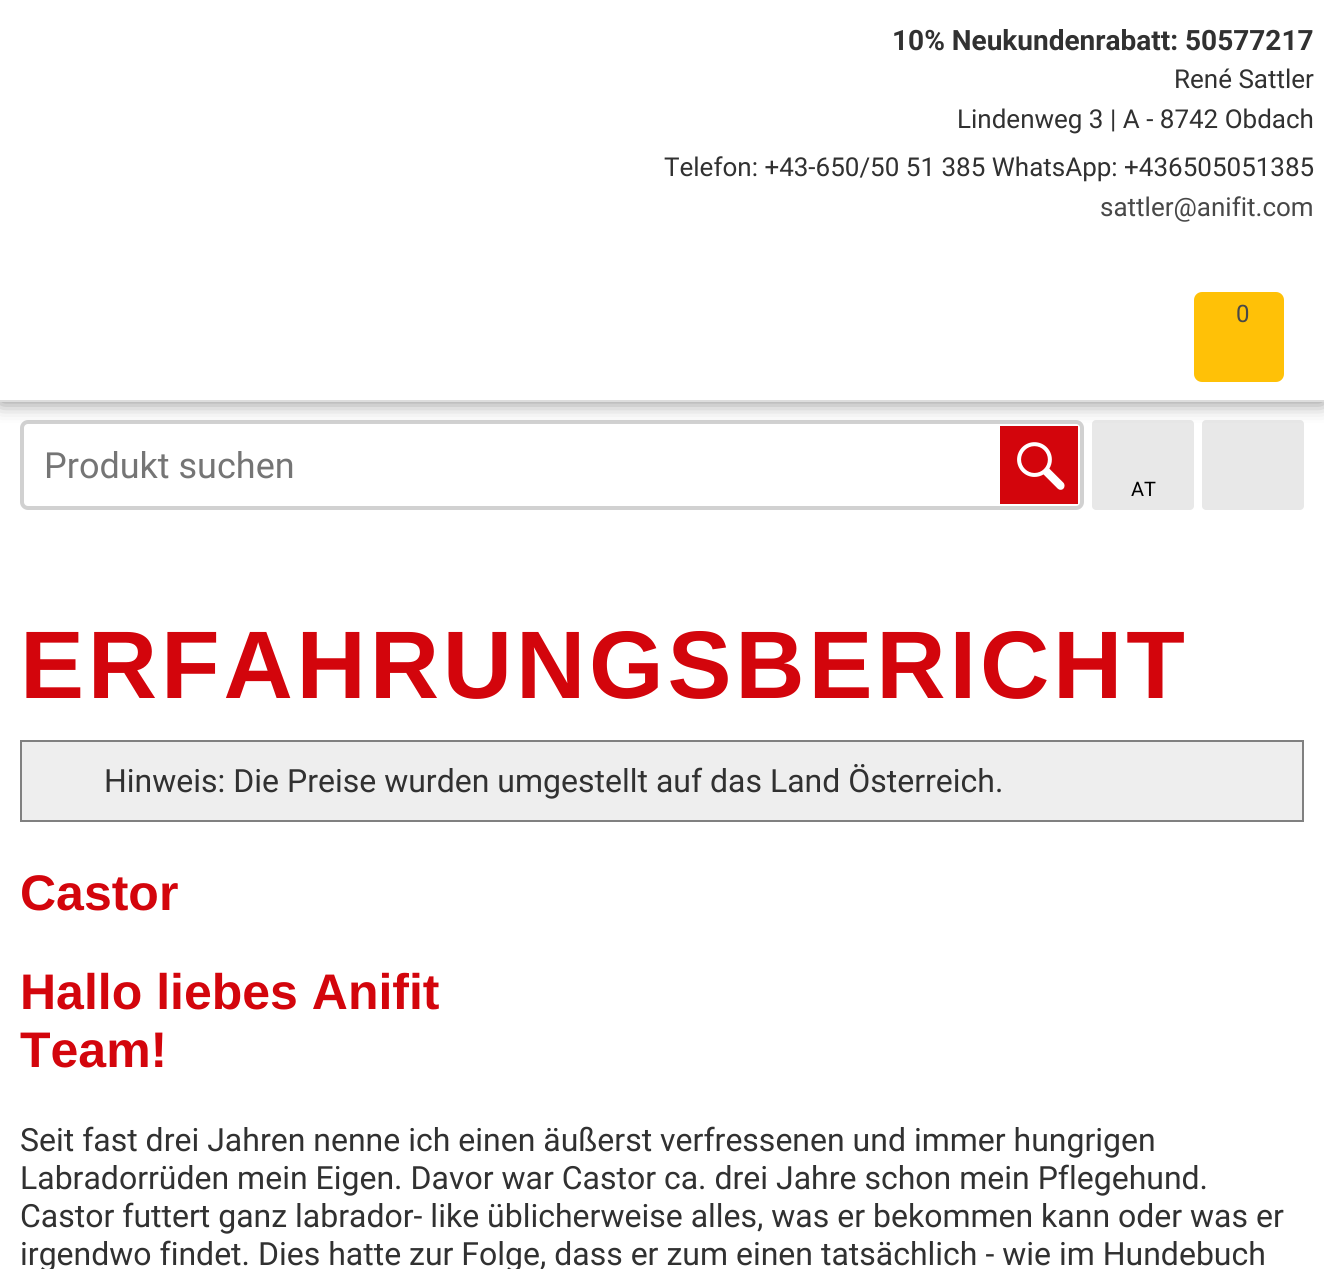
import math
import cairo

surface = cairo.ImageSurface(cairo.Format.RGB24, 1324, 1269)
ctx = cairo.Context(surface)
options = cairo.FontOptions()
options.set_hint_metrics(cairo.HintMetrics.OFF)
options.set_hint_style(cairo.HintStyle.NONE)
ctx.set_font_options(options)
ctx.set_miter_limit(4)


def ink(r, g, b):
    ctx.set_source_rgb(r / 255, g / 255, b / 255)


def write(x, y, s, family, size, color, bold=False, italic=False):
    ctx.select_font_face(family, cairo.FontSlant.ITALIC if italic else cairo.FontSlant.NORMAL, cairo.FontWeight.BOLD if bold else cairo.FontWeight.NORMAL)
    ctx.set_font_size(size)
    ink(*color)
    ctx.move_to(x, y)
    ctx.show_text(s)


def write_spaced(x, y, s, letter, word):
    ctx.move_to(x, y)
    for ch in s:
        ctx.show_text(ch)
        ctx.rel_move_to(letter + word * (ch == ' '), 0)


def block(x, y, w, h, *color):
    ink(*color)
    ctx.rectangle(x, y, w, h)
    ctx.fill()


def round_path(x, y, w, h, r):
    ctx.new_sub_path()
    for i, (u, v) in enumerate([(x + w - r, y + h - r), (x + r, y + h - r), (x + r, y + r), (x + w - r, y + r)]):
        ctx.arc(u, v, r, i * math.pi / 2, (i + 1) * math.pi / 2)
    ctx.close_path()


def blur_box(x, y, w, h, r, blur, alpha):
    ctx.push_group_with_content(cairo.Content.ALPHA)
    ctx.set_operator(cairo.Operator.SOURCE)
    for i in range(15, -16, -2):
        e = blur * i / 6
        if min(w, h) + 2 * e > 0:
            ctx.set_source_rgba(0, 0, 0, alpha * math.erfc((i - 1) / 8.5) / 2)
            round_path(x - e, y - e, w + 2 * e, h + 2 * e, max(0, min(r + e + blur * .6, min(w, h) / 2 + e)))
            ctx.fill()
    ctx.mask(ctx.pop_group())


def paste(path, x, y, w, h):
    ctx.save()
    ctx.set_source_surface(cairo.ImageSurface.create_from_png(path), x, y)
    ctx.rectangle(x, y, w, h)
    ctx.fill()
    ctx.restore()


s1 = dict(family="Roboto", size=28, color=(49, 49, 49), bold=True)
s2 = dict(family="Roboto", size=26, color=(49, 49, 49))
s3 = dict(family="Roboto", size=26, color=(72, 72, 72))
s4 = dict(family="Roboto", size=24, color=(72, 72, 72))
s5 = dict(family="Roboto", size=36, color=(117, 117, 117))
s6 = dict(family="Roboto", size=20, color=(0, 0, 0))
s7 = dict(family="Roboto", size=32, color=(49, 49, 49))
s8 = dict(family="Liberation Sans", size=50, color=(211, 5, 12), bold=True)

ink(255, 255, 255)
ctx.paint()
round_path(22, 422, 1060, 86, 6)
ink(209, 209, 209)
ctx.set_line_width(4)
ctx.stroke()
block(1000, 426, 78, 78, 211, 5, 12)
ink(232, 232, 232)
round_path(1202, 420, 102, 90, 4)
ctx.fill()
round_path(1092, 420, 102, 90, 4)
ctx.fill()
ctx.save()
ctx.rectangle(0, 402, 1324, 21)
ctx.clip()
ink(128, 128, 128)
blur_box(0, 0, 1324, 402, 0, 10, 1)
ctx.restore()
block(0, 400, 1324, 2, 221, 221, 221)
write(892, 50, "10% Neukundenrabatt: 50577217", **s1)
write(1174, 88, "René Sattler", **s2)
write(957, 128, "Lindenweg 3 | A - 8742 Obdach", **s2)
write(664, 176, "Telefon: +43-650/50 51 385 WhatsApp: +436505051385", **s2)
write(1100, 216, "sattler@anifit.com", **s3)
ink(255, 193, 7)
round_path(1194, 292, 90, 90, 8)
ctx.fill()
write(1236, 322, "0", **s4)
write(44, 478, "Produkt suchen", **s5)
paste("pic1.png", 1017, 442, 48, 48)
write(1131, 496, "AT", **s6)
ctx.select_font_face("Liberation Sans", cairo.FontSlant.NORMAL, cairo.FontWeight.BOLD)
ctx.set_font_size(96)
ink(211, 5, 12)
write_spaced(20, 698, "ERFAHRUNGSBERICHT", 3.8, 0)
ink(238, 238, 238)
ctx.rectangle(21, 741, 1282, 80)
ctx.fill_preserve()
ink(128, 128, 128)
ctx.set_line_width(2)
ctx.stroke()
write(104, 792, "Hinweis: Die Preise wurden umgestellt auf das Land Österreich.", **s7)
write(20, 910, "Castor", **s8)
write(20, 1009, "Hallo liebes Anifit", **s8)
write(20, 1067, "Team!", **s8)
write(20, 1151, "Seit fast drei Jahren nenne ich einen äußerst verfressenen und immer hungrigen", **s7)
write(20, 1189, "Labradorrüden mein Eigen. Davor war Castor ca. drei Jahre schon mein Pflegehund.", **s7)
write(20, 1227, "Castor futtert ganz labrador- like üblicherweise alles, was er bekommen kann oder was er", **s7)
write(20, 1265, "irgendwo findet. Dies hatte zur Folge, dass er zum einen tatsächlich - wie im Hundebuch", **s7)
surface.write_to_png("screenshot.png")
